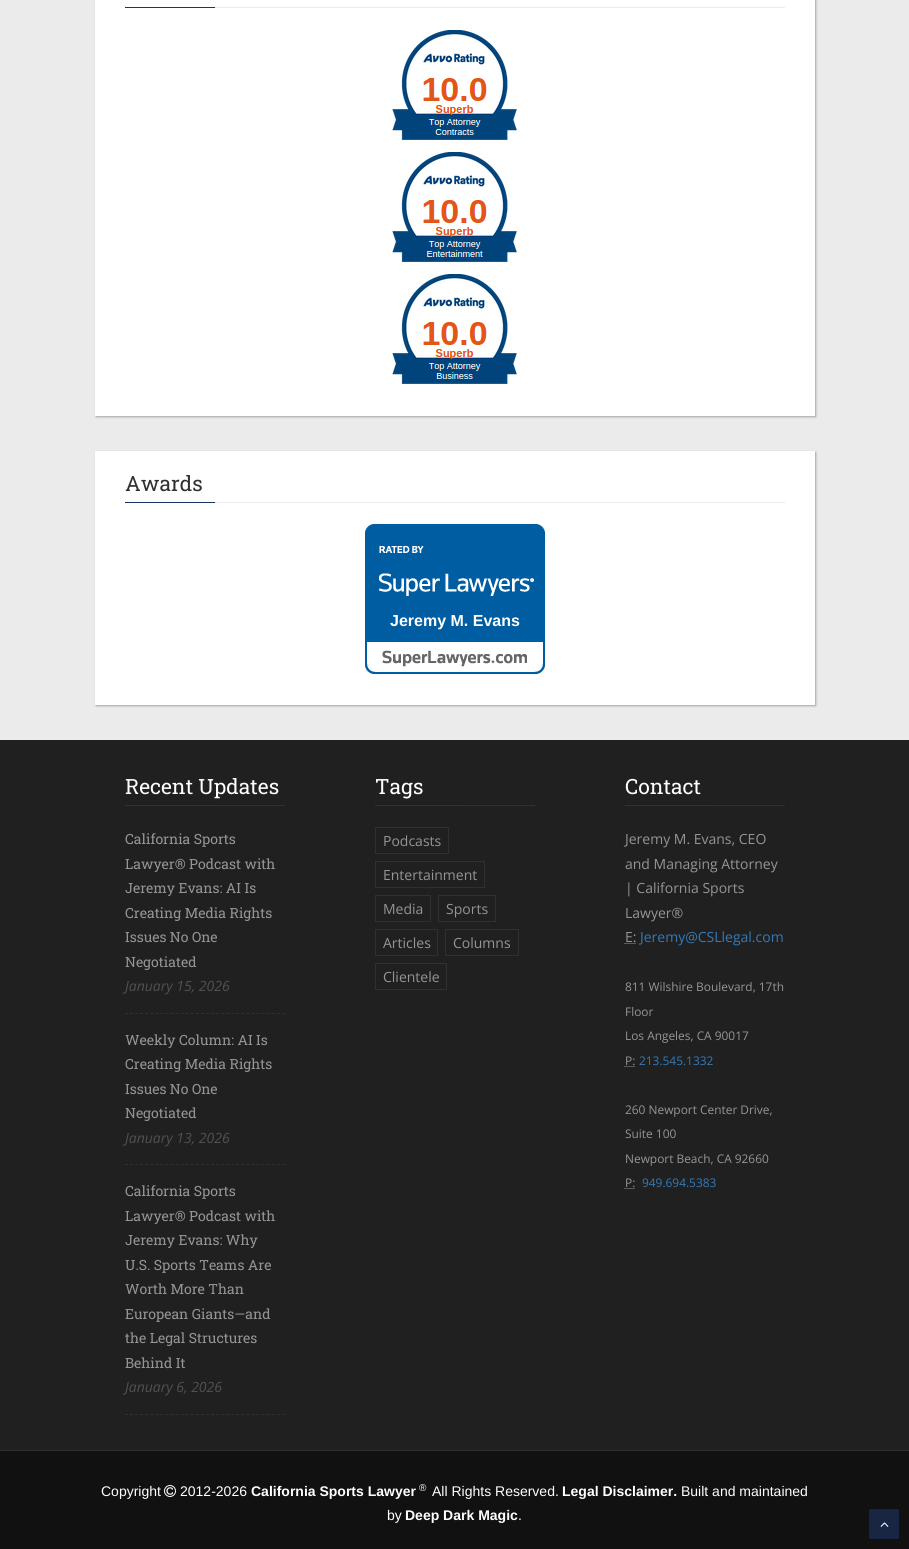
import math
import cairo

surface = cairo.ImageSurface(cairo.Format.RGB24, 909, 1549)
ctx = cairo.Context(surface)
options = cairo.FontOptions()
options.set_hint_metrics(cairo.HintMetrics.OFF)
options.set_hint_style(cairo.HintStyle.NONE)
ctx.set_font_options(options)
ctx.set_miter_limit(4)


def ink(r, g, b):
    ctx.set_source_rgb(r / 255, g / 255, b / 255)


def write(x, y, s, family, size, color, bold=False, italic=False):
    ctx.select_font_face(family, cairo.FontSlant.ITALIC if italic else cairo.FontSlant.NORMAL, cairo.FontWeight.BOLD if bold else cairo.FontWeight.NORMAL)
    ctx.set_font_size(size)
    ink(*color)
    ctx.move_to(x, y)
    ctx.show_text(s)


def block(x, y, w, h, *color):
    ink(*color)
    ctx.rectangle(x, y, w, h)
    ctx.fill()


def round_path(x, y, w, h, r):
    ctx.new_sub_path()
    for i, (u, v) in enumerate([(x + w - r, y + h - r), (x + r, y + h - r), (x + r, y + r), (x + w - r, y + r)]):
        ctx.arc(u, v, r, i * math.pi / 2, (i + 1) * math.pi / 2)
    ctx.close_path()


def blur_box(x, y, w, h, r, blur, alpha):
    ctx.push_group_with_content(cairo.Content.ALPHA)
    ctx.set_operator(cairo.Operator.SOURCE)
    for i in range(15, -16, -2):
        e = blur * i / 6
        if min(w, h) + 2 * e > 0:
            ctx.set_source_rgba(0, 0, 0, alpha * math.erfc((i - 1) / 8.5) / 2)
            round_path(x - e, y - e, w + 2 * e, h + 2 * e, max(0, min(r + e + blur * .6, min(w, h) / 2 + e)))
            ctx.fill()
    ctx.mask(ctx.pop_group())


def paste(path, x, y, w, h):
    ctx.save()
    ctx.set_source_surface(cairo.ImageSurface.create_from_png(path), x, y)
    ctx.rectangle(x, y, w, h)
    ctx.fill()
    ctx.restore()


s1 = dict(family="Roboto Slab", size=21, color=(48, 48, 48))
s2 = dict(family="Liberation Sans", size=16, color=(255, 255, 255), bold=True)
s3 = dict(family="Roboto Slab", size=21, color=(255, 255, 255))
s4 = dict(family="Roboto Slab", size=14, color=(149, 149, 149))
s5 = dict(family="Open Sans", size=14, color=(80, 80, 80), italic=True)
s6 = dict(family="Open Sans", size=14, color=(149, 149, 149))
s7 = dict(family="Open Sans", size=14, color=(51, 122, 183))
s8 = dict(family="Open Sans", size=11.9, color=(149, 149, 149))
s9 = dict(family="Open Sans", size=11.9, color=(51, 122, 183))
s10 = dict(family="Liberation Sans", size=14, color=(255, 255, 255))
s11 = dict(family="Liberation Sans", size=14, color=(255, 255, 255), bold=True)
s12 = dict(family="Liberation Sans", size=10, color=(255, 255, 255))

ink(235, 235, 235)
ctx.paint()
ink(0, 0, 0)
blur_box(96, -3, 720, 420, 0, 1, 0.3)
block(95, 0, 720, 416, 255, 255, 255)
block(215, 7, 570, 1, 235, 235, 235)
block(125, 7, 90, 1, 28, 52, 101)
paste("pic1.png", 392, 30, 125, 110)
paste("pic2.png", 392, 152, 125, 110)
paste("pic3.png", 392, 274, 125, 110)
ink(0, 0, 0)
blur_box(96, 452, 720, 254, 0, 1, 0.3)
block(95, 451, 720, 254, 255, 255, 255)
block(215, 502, 570, 1, 235, 235, 235)
write(125, 491, "Awards", **s1)
block(125, 502, 90, 1, 28, 52, 101)
paste("pic4.png", 365, 524, 180, 150)
write(390, 626, "Jeremy M. Evans", **s2)
block(0, 740, 909, 710, 32, 32, 32)
block(215, 805, 70, 1, 48, 48, 48)
write(125, 794, "Recent Updates", **s3)
block(125, 805, 90, 1, 28, 52, 101)
ctx.new_path()
ctx.move_to(125, 1013.5)
ctx.line_to(285, 1013.5)
ink(48, 48, 48)
ctx.set_line_width(1)
ctx.set_dash([3, 2.06])
ctx.stroke()
write(125, 844, "California Sports", **s4)
write(125, 869, "Lawyer® Podcast with", **s4)
write(125, 893, "Jeremy Evans: AI Is", **s4)
write(125, 918, "Creating Media Rights", **s4)
write(125, 942, "Issues No One", **s4)
write(125, 967, "Negotiated", **s4)
write(125, 991, "January 15, 2026", **s5)
ctx.new_path()
ctx.move_to(125, 1164.5)
ctx.line_to(285, 1164.5)
ink(48, 48, 48)
ctx.stroke()
write(125, 1045, "Weekly Column: AI Is", **s4)
write(125, 1069, "Creating Media Rights", **s4)
write(125, 1094, "Issues No One", **s4)
write(125, 1118, "Negotiated", **s4)
write(125, 1143, "January 13, 2026", **s5)
ctx.new_path()
ctx.move_to(125, 1414.5)
ctx.line_to(285, 1414.5)
ink(48, 48, 48)
ctx.stroke()
write(125, 1196, "California Sports", **s4)
write(125, 1221, "Lawyer® Podcast with", **s4)
write(125, 1245, "Jeremy Evans: Why", **s4)
write(125, 1270, "U.S. Sports Teams Are", **s4)
write(125, 1294, "Worth More Than", **s4)
write(125, 1319, "European Giants—and", **s4)
write(125, 1343, "the Legal Structures", **s4)
write(125, 1368, "Behind It", **s4)
write(125, 1392, "January 6, 2026", **s5)
block(465, 805, 70, 1, 48, 48, 48)
write(375, 794, "Tags", **s3)
block(375, 805, 90, 1, 28, 52, 101)
ctx.rectangle(375.5, 827.5, 73, 26)
ink(48, 48, 48)
ctx.set_dash([])
ctx.stroke()
write(383, 846, "Podcasts", **s6)
ctx.rectangle(375.5, 861.5, 109, 26)
ink(48, 48, 48)
ctx.stroke()
write(383, 880, "Entertainment", **s6)
ctx.rectangle(375.5, 895.5, 55, 26)
ink(48, 48, 48)
ctx.stroke()
write(383, 914, "Media", **s6)
ctx.rectangle(438.5, 895.5, 57, 26)
ink(48, 48, 48)
ctx.stroke()
write(446, 914, "Sports", **s6)
ctx.rectangle(375.5, 929.5, 62, 26)
ink(48, 48, 48)
ctx.stroke()
write(383, 948, "Articles", **s6)
ctx.rectangle(445.5, 929.5, 73, 26)
ink(48, 48, 48)
ctx.stroke()
write(453, 948, "Columns", **s6)
ctx.rectangle(375.5, 963.5, 71, 26)
ink(48, 48, 48)
ctx.stroke()
write(383, 982, "Clientele", **s6)
block(715, 805, 70, 1, 48, 48, 48)
write(625, 794, "Contact", **s3)
block(625, 805, 90, 1, 28, 52, 101)
write(625, 844, "Jeremy M. Evans, CEO", **s6)
write(625, 869, "and Managing Attorney", **s6)
write(625, 893, "| California Sports", **s6)
write(625, 918, "Lawyer®", **s6)
write(625, 942, "E:", **s6)
ctx.new_path()
ctx.move_to(624.5, 943.5)
ctx.line_to(636, 943.5)
ctx.set_dash([1, 1])
ctx.stroke()
write(640, 942, "Jeremy@CSLlegal.com", **s7)
write(625, 991, "811 Wilshire Boulevard, 17th", **s8)
write(625, 1016, "Floor", **s8)
write(625, 1040, "Los Angeles, CA 90017", **s8)
write(625, 1065, "P:", **s8)
ctx.new_path()
ctx.move_to(624.5, 1066.5)
ctx.line_to(635, 1066.5)
ctx.stroke()
write(639, 1065, "213.545.1332", **s9)
write(625, 1114, "260 Newport Center Drive,", **s8)
write(625, 1138, "Suite 100", **s8)
write(625, 1163, "Newport Beach, CA 92660", **s8)
write(625, 1187, "P:", **s8)
ctx.new_path()
ctx.move_to(624.5, 1188.5)
ctx.line_to(635, 1188.5)
ctx.stroke()
write(642, 1187, "949.694.5383", **s9)
block(0, 1451, 909, 98, 17, 17, 17)
block(0, 1450, 909, 1, 48, 48, 48)
write(101, 1496, "Copyright", **s10)
paste("pic5.png", 164, 1485, 12, 12)
write(180, 1496, "2012-2026", **s10)
write(251, 1496, "California Sports Lawyer", **s11)
write(419, 1491, "®", **s12)
write(432, 1496, "All Rights Reserved.", **s10)
write(562, 1496, "Legal Disclaimer.", **s11)
write(681, 1496, "Built and maintained", **s10)
write(387, 1520, "by", **s10)
write(405, 1520, "Deep Dark Magic", **s11)
write(518, 1520, ".", **s10)
ink(24, 38, 67)
round_path(869, 1509, 30, 30, 2)
ctx.fill()
paste("pic6.png", 880, 1522, 9, 5)
surface.write_to_png("screenshot.png")
